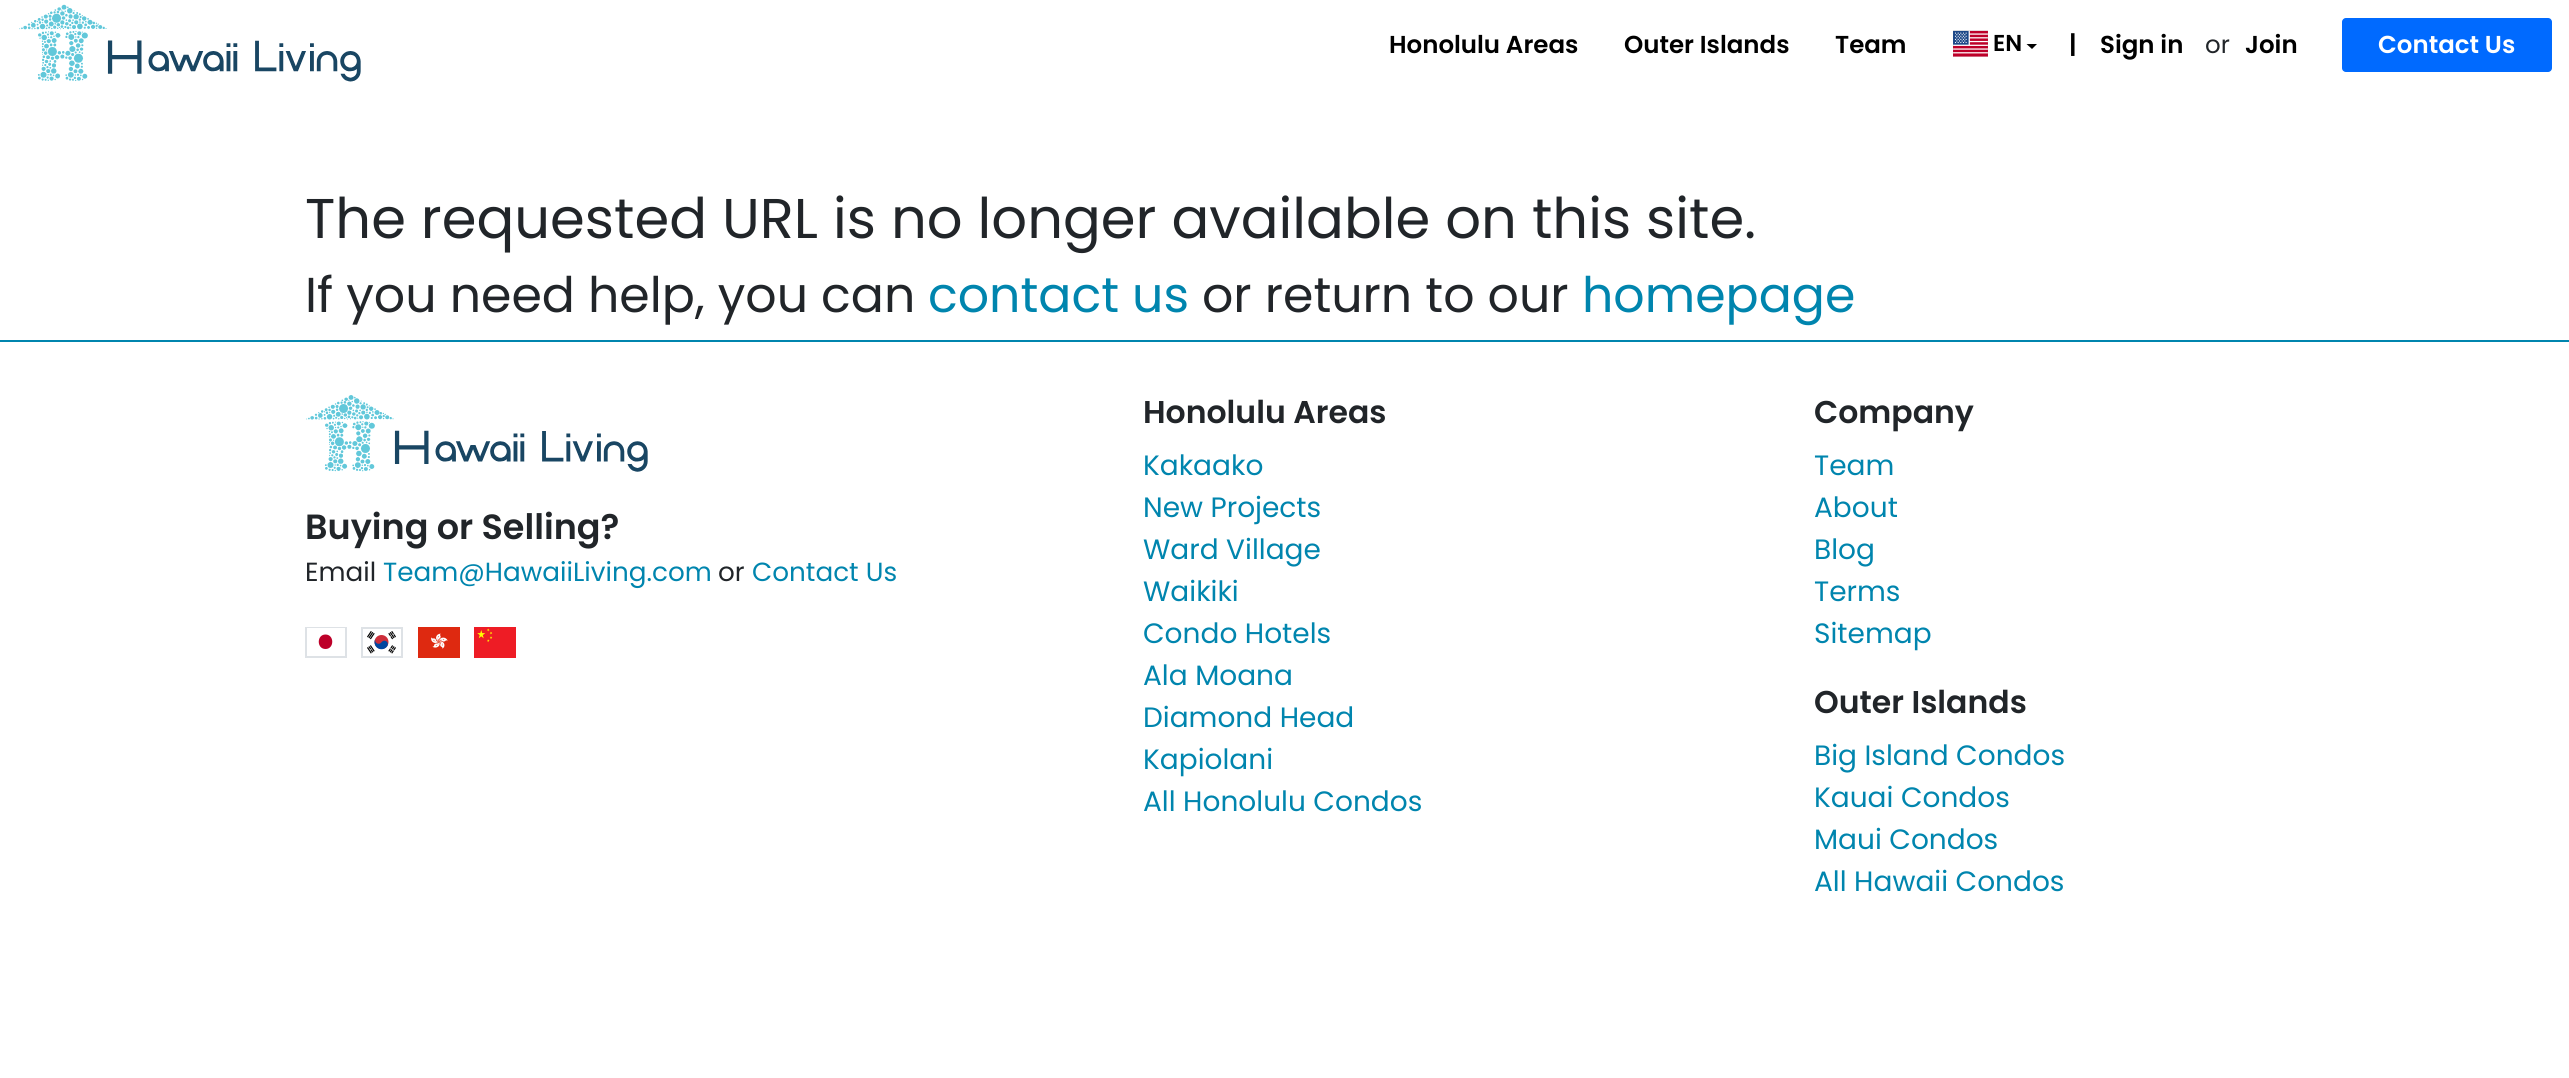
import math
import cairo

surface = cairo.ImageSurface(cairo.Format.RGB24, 2569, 1078)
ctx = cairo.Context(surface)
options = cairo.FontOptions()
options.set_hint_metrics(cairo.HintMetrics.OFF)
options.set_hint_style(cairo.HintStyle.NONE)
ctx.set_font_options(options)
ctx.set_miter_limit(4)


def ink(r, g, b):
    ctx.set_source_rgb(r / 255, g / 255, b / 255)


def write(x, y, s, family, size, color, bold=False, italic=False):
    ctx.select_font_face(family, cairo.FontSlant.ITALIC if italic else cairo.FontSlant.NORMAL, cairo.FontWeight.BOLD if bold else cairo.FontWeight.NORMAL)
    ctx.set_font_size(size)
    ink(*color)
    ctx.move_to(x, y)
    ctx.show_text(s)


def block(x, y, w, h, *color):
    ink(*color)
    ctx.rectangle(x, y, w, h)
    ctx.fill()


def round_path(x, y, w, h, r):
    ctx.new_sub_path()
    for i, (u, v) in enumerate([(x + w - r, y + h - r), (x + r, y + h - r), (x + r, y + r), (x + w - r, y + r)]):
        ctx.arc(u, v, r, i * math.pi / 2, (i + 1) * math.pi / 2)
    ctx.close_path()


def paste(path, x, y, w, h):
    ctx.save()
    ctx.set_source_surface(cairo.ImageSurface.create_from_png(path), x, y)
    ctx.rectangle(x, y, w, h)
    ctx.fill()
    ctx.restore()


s1 = dict(family="Poppins SemiBold", size=24.5, color=(0, 0, 0))
s2 = dict(family="Poppins SemiBold", size=23, color=(0, 0, 0))
s3 = dict(family="Poppins", size=24.5, color=(33, 37, 41))
s4 = dict(family="Poppins SemiBold", size=24.5, color=(255, 255, 255))
s5 = dict(family="Poppins", size=56, color=(33, 37, 41))
s6 = dict(family="Poppins", size=49, color=(33, 37, 41))
s7 = dict(family="Poppins", size=49, color=(0, 133, 174))
s8 = dict(family="Poppins SemiBold", size=35, color=(33, 37, 41))
s9 = dict(family="Poppins", size=26.25, color=(33, 37, 41))
s10 = dict(family="Poppins", size=26.25, color=(0, 133, 174))
s11 = dict(family="Poppins SemiBold", size=31.5, color=(33, 37, 41))
s12 = dict(family="Poppins", size=28, color=(0, 133, 174))

ink(255, 255, 255)
ctx.paint()
paste("pic1.png", 19, 4, 342, 78)
write(1389, 53, "Honolulu Areas", **s1)
write(1624, 53, "Outer Islands", **s1)
write(1835, 53, "Team", **s1)
paste("pic2.png", 1953, 30, 35, 27)
write(1993, 51, "EN", **s2)
ctx.new_path()
ctx.move_to(2026.5, 44)
ctx.line_to(2037, 44)
ctx.line_to(2032, 49)
ctx.close_path()
ctx.fill()
write(2069, 53, "|", **s1)
write(2100, 53, "Sign in", **s1)
write(2205, 53, "or", **s3)
write(2245, 53, "Join", **s1)
ink(0, 106, 255)
round_path(2342, 18, 210, 54, 4)
ctx.fill()
write(2378, 53, "Contact Us", **s4)
write(305, 238, "The requested URL is no longer available on this site.", **s5)
write(305, 312, "If you need help, you can", **s6)
write(928, 312, "contact us", **s7)
write(1202, 312, "or return to our", **s6)
write(1582, 312, "homepage", **s7)
block(0, 340, 2569, 2, 0, 133, 174)
paste("pic3.png", 306, 395, 342, 77)
write(305, 539, "Buying or Selling?", **s8)
write(305, 581, "Email", **s9)
write(383, 581, "Team@HawaiiLiving.com", **s10)
write(718, 581, "or", **s9)
write(752, 581, "Contact Us", **s10)
ctx.rectangle(306, 628, 40, 29)
ink(222, 226, 230)
ctx.stroke()
ctx.rectangle(362, 628, 40, 29)
ctx.stroke()
paste("pic4.png", 418, 627, 42, 31)
paste("pic5.png", 474, 627, 42, 31)
block(307, 628, 38, 1, 255, 255, 255)
ink(189, 0, 41)
ctx.new_path()
ctx.move_to(325.5, 634.5)
ctx.curve_to(334.5, 634.5, 334.5, 649, 325.5, 649)
ctx.curve_to(316.5, 649, 316.5, 634.5, 325.5, 634.5)
ctx.fill()
paste("pic6.png", 367, 631, 29, 23)
write(1143, 423, "Honolulu Areas", **s11)
write(1143, 475, "Kakaako", **s12)
write(1143, 517, "New Projects", **s12)
write(1143, 559, "Ward Village", **s12)
write(1143, 601, "Waikiki", **s12)
write(1143, 643, "Condo Hotels", **s12)
write(1143, 685, "Ala Moana", **s12)
write(1143, 727, "Diamond Head", **s12)
write(1143, 769, "Kapiolani", **s12)
write(1143, 811, "All Honolulu Condos", **s12)
write(1814, 423, "Company", **s11)
write(1814, 475, "Team", **s12)
write(1814, 517, "About", **s12)
write(1814, 559, "Blog", **s12)
write(1814, 601, "Terms", **s12)
write(1814, 643, "Sitemap", **s12)
write(1814, 713, "Outer Islands", **s11)
write(1814, 765, "Big Island Condos", **s12)
write(1814, 807, "Kauai Condos", **s12)
write(1814, 849, "Maui Condos", **s12)
write(1814, 891, "All Hawaii Condos", **s12)
surface.write_to_png("screenshot.png")
